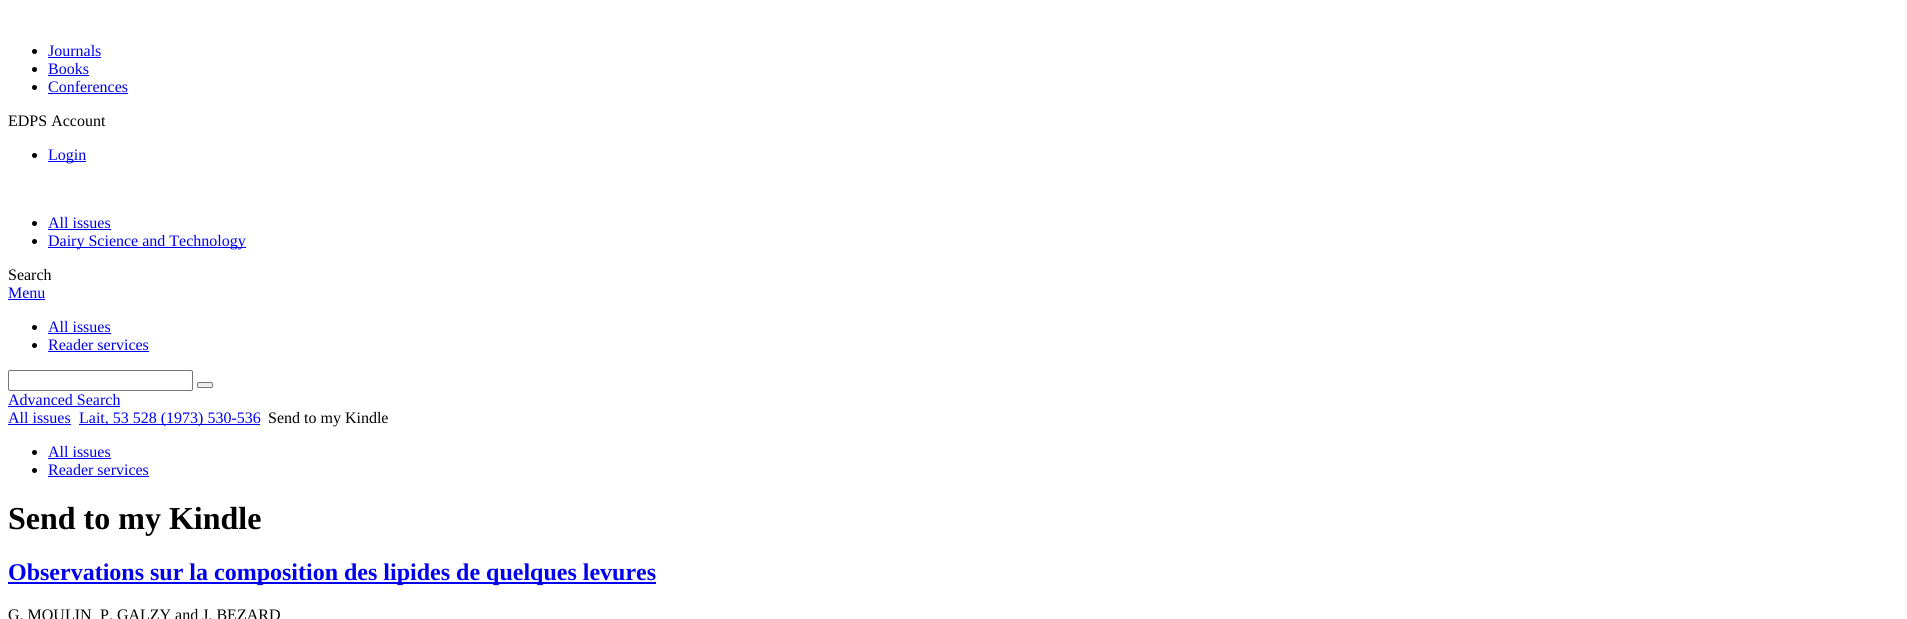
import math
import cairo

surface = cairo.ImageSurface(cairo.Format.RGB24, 1907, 619)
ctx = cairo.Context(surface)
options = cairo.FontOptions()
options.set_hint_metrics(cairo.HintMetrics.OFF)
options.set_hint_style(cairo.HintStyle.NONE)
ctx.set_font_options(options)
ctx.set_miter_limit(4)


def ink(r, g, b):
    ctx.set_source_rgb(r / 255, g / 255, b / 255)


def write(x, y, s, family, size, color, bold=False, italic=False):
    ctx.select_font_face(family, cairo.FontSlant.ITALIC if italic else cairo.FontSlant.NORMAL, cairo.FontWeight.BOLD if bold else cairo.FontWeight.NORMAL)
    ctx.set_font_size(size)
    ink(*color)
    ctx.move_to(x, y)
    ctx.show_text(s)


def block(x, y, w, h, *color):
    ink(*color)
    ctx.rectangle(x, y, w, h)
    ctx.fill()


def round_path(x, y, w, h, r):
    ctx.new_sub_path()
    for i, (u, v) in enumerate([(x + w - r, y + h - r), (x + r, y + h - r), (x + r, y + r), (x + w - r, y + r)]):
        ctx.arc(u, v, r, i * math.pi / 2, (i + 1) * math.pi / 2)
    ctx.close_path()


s1 = dict(family="Liberation Serif", size=16, color=(0, 0, 238))
s2 = dict(family="Liberation Serif", size=16, color=(0, 0, 0))
s3 = dict(family="Liberation Serif", size=32, color=(0, 0, 0), bold=True)
s4 = dict(family="Liberation Serif", size=24, color=(0, 0, 238), bold=True)

ink(255, 255, 255)
ctx.paint()
ink(0, 0, 0)
ctx.arc(34.5, 51.5, 2.5, 0, 2 * math.pi)
ctx.fill()
write(48, 56, "Journals", **s1)
block(48, 57, 53, 1, 0, 0, 238)
ink(0, 0, 0)
ctx.new_path()
ctx.arc(34.5, 69.5, 2.5, 0, 2 * math.pi)
ctx.fill()
write(48, 74, "Books", **s1)
block(48, 75, 41, 1, 0, 0, 238)
ink(0, 0, 0)
ctx.new_path()
ctx.arc(34.5, 87.5, 2.5, 0, 2 * math.pi)
ctx.fill()
write(48, 92, "Conferences", **s1)
block(48, 93, 80, 1, 0, 0, 238)
write(8, 126, "EDPS Account", **s2)
ctx.new_path()
ctx.arc(34.5, 155.5, 2.5, 0, 2 * math.pi)
ctx.fill()
block(48, 161, 38, 1, 0, 0, 238)
write(48, 160, "Login", **s1)
ink(0, 0, 0)
ctx.new_path()
ctx.arc(34.5, 223.5, 2.5, 0, 2 * math.pi)
ctx.fill()
write(48, 228, "All issues", **s1)
block(48, 229, 63, 1, 0, 0, 238)
ink(0, 0, 0)
ctx.new_path()
ctx.arc(34.5, 241.5, 2.5, 0, 2 * math.pi)
ctx.fill()
block(48, 247, 198, 1, 0, 0, 238)
write(48, 246, "Dairy Science and Technology", **s1)
write(8, 280, "Search", **s2)
write(8, 298, "Menu", **s1)
block(8, 299, 37, 1, 0, 0, 238)
ink(0, 0, 0)
ctx.new_path()
ctx.arc(34.5, 327.5, 2.5, 0, 2 * math.pi)
ctx.fill()
write(48, 332, "All issues", **s1)
block(48, 333, 63, 1, 0, 0, 238)
ink(0, 0, 0)
ctx.new_path()
ctx.arc(34.5, 345.5, 2.5, 0, 2 * math.pi)
ctx.fill()
write(48, 350, "Reader services", **s1)
block(48, 351, 101, 1, 0, 0, 238)
round_path(8.5, 370.5, 184, 20, 1.5)
ink(118, 118, 118)
ctx.set_line_width(1)
ctx.stroke()
ink(239, 239, 239)
round_path(197.5, 382.5, 15, 5, 1.5)
ctx.fill_preserve()
ink(118, 118, 118)
ctx.stroke()
write(8, 405, "Advanced Search", **s1)
block(8, 406, 112, 1, 0, 0, 238)
write(8, 423, "All issues", **s1)
block(8, 424, 63, 1, 0, 0, 238)
block(79, 424, 181, 1, 0, 0, 238)
write(79, 423, "Lait, 53 528 (1973) 530-536", **s1)
write(268, 423, "Send to my Kindle", **s2)
ctx.new_path()
ctx.arc(34.5, 452.5, 2.5, 0, 2 * math.pi)
ctx.fill()
write(48, 457, "All issues", **s1)
block(48, 458, 63, 1, 0, 0, 238)
ink(0, 0, 0)
ctx.new_path()
ctx.arc(34.5, 470.5, 2.5, 0, 2 * math.pi)
ctx.fill()
write(48, 475, "Reader services", **s1)
block(48, 476, 101, 1, 0, 0, 238)
write(8, 529, "Send to my Kindle", **s3)
block(8, 582, 648, 2, 0, 0, 238)
write(8, 580, "Observations sur la composition des lipides de quelques levures", **s4)
write(8, 620, "G. MOULIN", **s2)
write(100, 620, "P. GALZY and J. BEZARD", **s2)
surface.write_to_png("screenshot.png")
